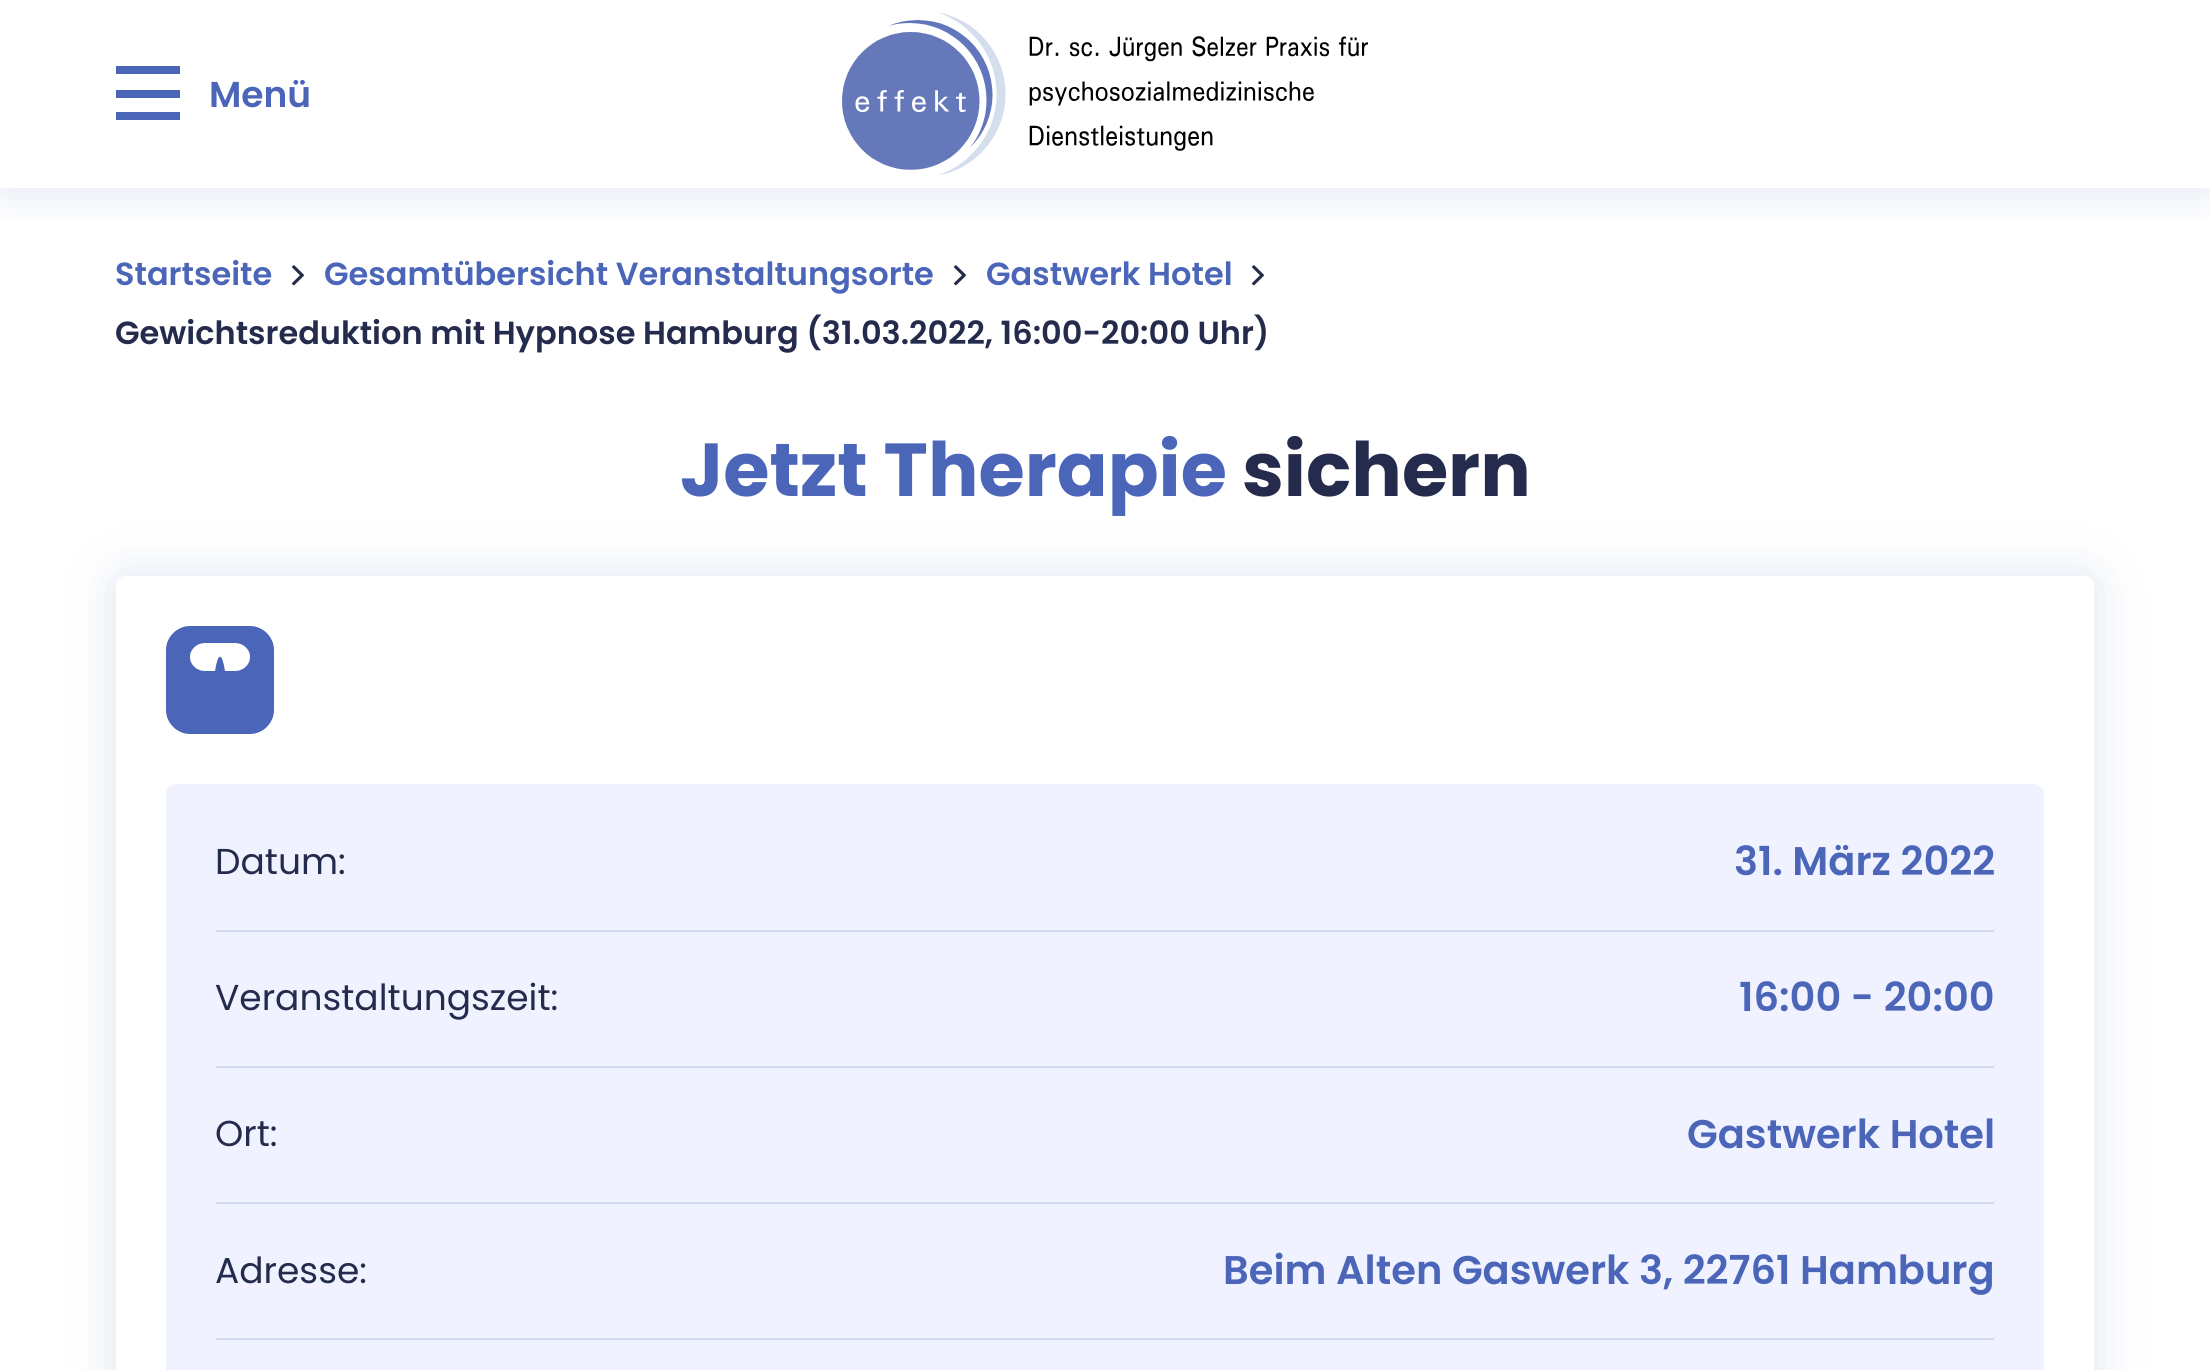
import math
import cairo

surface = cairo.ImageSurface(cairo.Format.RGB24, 2210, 1370)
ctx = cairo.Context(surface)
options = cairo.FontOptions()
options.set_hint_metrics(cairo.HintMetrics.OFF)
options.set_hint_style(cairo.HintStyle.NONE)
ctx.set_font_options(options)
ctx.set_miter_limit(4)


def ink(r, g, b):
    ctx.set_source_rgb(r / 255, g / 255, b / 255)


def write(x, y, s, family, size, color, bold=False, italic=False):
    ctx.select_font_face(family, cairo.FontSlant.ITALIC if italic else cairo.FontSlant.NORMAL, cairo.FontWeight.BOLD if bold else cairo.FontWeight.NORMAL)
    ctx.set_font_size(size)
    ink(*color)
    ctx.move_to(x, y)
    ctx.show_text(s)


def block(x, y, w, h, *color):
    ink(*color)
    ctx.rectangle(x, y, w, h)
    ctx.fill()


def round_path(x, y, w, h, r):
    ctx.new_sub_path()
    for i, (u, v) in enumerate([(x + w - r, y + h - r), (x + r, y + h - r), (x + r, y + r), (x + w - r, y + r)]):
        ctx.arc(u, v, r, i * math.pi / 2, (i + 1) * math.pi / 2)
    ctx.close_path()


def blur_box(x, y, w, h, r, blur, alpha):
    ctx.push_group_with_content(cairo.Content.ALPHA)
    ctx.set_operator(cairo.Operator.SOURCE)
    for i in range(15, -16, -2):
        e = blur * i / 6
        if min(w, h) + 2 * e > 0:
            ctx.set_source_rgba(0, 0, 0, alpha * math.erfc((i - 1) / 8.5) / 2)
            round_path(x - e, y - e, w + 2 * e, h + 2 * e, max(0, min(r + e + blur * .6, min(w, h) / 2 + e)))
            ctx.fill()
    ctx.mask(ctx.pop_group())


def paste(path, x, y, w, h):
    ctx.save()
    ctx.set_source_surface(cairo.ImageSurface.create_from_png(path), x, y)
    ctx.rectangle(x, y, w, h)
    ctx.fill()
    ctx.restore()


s1 = dict(family="Poppins SemiBold", size=36, color=(75, 101, 185))
s2 = dict(family="Poppins SemiBold", size=32, color=(75, 101, 185))
s3 = dict(family="Poppins SemiBold", size=32, color=(37, 43, 76))
s4 = dict(family="Poppins", size=75, color=(75, 101, 185), bold=True)
s5 = dict(family="Poppins", size=75, color=(37, 43, 76), bold=True)
s6 = dict(family="Poppins", size=36, color=(37, 43, 76))
s7 = dict(family="Poppins SemiBold", size=40, color=(75, 101, 185))

ink(255, 255, 255)
ctx.paint()
ctx.save()
ctx.rectangle(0, 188, 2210, 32)
ctx.clip()
ink(99, 119, 182)
blur_box(0, 0, 2210, 188, 0, 25, 0.2)
ctx.restore()
block(116, 66, 64, 8, 75, 101, 185)
block(116, 90, 64, 8, 75, 101, 185)
block(116, 112, 64, 8, 75, 101, 185)
write(209, 107, "Menü", **s1)
paste("pic1.png", 842, 12, 526, 164)
write(115, 285, "Startseite", **s2)
paste("pic2.png", 292, 265, 12, 21)
write(324, 285, "Gesamtübersicht Veranstaltungsorte", **s2)
paste("pic2.png", 954, 265, 12, 21)
write(986, 285, "Gastwerk Hotel", **s2)
paste("pic2.png", 1252, 265, 12, 21)
write(115, 344, "Gewichtsreduktion mit Hypnose Hamburg (31.03.2022, 16:00-20:00 Uhr)", **s3)
write(680, 496, "Jetzt Therapie", **s4)
write(1242, 496, "sichern", **s5)
ink(99, 119, 182)
blur_box(116, 576, 1978, 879, 10, 25, 0.2)
ink(255, 255, 255)
round_path(116, 576, 1978, 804, 10)
ctx.fill()
ink(75, 101, 185)
ctx.new_path()
ctx.move_to(250, 626)
ctx.line_to(190, 626)
ctx.curve_to(177, 626, 166, 637, 166, 650)
ctx.line_to(166, 710)
ctx.curve_to(166, 723, 177, 734, 190, 734)
ctx.line_to(250, 734)
ctx.curve_to(263, 734, 274, 723, 274, 710)
ctx.line_to(274, 650)
ctx.curve_to(274, 637, 263, 626, 250, 626)
ctx.close_path()
ctx.move_to(235, 671)
ctx.line_to(225, 671)
ctx.curve_to(222, 652, 218, 652, 215, 671)
ctx.line_to(205, 671)
ctx.curve_to(197, 671, 190, 665, 190, 657)
ctx.curve_to(190, 649, 197, 643, 205, 643)
ctx.line_to(235, 643)
ctx.curve_to(243, 643, 250, 649, 250, 657)
ctx.curve_to(250, 665, 243, 671, 235, 671)
ctx.close_path()
ctx.fill()
ink(240, 243, 255)
round_path(166, 784, 1878, 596, 10)
ctx.fill()
block(216, 930, 1778, 2, 210, 217, 242)
write(215, 874, "Datum:", **s6)
write(1734, 875, "31. März 2022", **s7)
block(216, 1066, 1778, 2, 210, 217, 242)
write(215, 1010, "Veranstaltungszeit:", **s6)
write(1739, 1011, "16:00 - 20:00", **s7)
block(216, 1202, 1778, 2, 210, 217, 242)
write(215, 1146, "Ort:", **s6)
write(1687, 1148, "Gastwerk Hotel", **s7)
block(216, 1338, 1778, 2, 210, 217, 242)
write(215, 1283, "Adresse:", **s6)
write(1223, 1284, "Beim Alten Gaswerk 3, 22761 Hamburg", **s7)
surface.write_to_png("screenshot.png")
